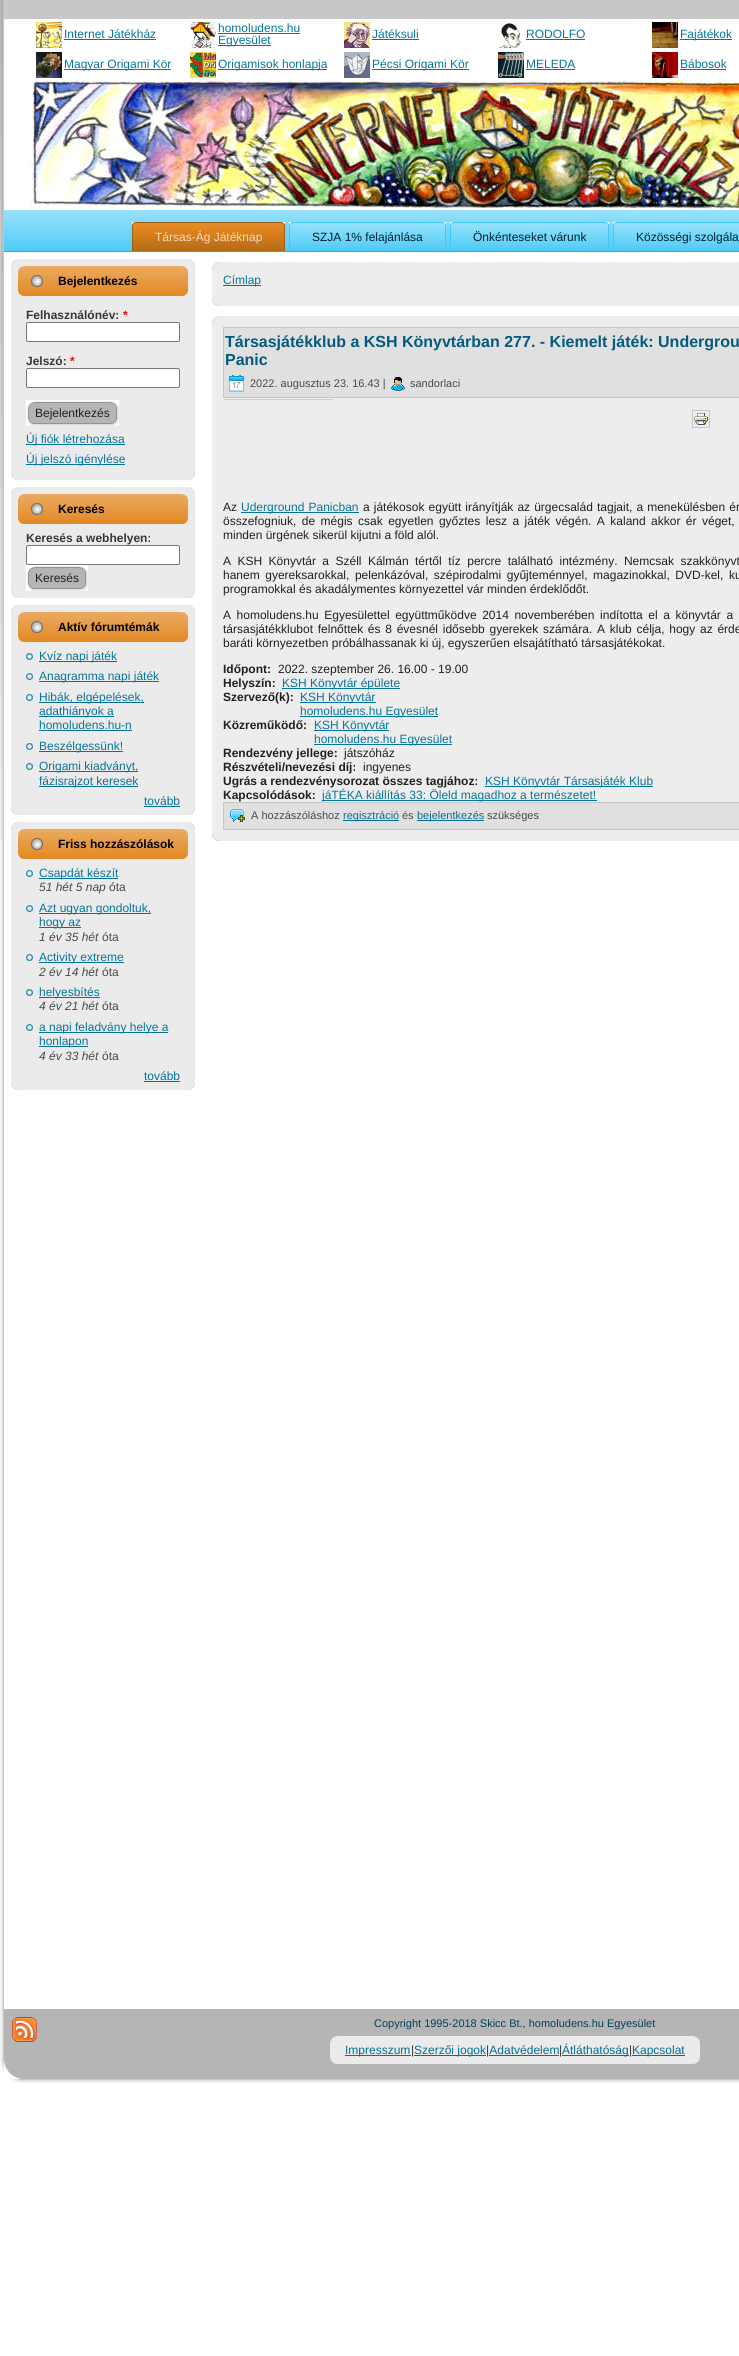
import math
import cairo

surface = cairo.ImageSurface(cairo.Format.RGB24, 739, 2356)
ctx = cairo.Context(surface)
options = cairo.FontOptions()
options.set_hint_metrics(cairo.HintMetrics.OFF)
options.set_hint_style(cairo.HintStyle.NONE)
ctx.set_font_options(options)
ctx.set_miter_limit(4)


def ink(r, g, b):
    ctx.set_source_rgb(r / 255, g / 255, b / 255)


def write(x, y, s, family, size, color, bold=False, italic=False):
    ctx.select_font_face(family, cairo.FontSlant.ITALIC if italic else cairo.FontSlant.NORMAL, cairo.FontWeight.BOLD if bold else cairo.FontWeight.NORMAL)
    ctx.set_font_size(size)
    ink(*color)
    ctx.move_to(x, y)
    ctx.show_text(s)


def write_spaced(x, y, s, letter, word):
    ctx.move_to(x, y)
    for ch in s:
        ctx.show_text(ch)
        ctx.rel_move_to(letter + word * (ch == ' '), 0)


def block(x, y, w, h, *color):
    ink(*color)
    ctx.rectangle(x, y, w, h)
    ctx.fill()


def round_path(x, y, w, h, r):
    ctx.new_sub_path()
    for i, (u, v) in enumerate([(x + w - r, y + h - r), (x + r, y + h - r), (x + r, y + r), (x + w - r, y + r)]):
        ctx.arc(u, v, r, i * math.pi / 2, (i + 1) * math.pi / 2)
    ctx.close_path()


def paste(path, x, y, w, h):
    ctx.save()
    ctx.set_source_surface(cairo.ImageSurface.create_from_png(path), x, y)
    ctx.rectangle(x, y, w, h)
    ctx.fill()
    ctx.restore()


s1 = dict(family="Liberation Sans", size=12, color=(6, 117, 157))
s2 = dict(family="Liberation Sans", size=12, color=(246, 219, 187))
s3 = dict(family="Liberation Sans", size=12, color=(2, 33, 44))
s4 = dict(family="Liberation Sans", size=12, color=(0, 0, 0), bold=True)
s5 = dict(family="Liberation Sans", size=12, color=(54, 54, 54), bold=True)
s6 = dict(family="Liberation Sans", size=12, color=(255, 0, 0), bold=True)
s7 = dict(family="Liberation Sans", size=12, color=(33, 33, 33))
s8 = dict(family="Liberation Sans", size=12, color=(74, 74, 74), italic=True)
s9 = dict(family="Liberation Sans", size=12, color=(74, 74, 74))
s10 = dict(family="Liberation Sans", size=16, color=(4, 91, 123), bold=True)
s11 = dict(family="Liberation Sans", size=11, color=(74, 74, 74))
s12 = dict(family="Liberation Sans", size=12, color=(33, 33, 33), bold=True)
s13 = dict(family="Liberation Sans", size=11, color=(5, 110, 148))
s14 = dict(family="Liberation Sans", size=11, color=(3, 66, 89))
s15 = dict(family="Liberation Sans", size=12, color=(5, 110, 148))
s16 = dict(family="Liberation Sans", size=12, color=(54, 54, 54))

ink(255, 255, 255)
ctx.paint()
paste("pic1.png", 0, 0, 3, 840)
paste("pic2.png", 0, 0, 33, 29)
paste("pic3.png", 33, 0, 706, 29)
paste("pic4.png", 0, 29, 33, 2021)
paste("pic5.png", 36, 22, 26, 26)
write(64, 38, "Internet Játékház", **s1)
block(64, 39, 92, 1, 6, 117, 157)
paste("pic6.png", 190, 22, 26, 26)
write(218, 32, "homoludens.hu", **s1)
block(218, 33, 82, 1, 6, 117, 157)
block(218, 45, 53, 1, 6, 117, 157)
write(218, 44, "Egyesület", **s1)
paste("pic7.png", 344, 22, 26, 26)
write(372, 38, "Játéksuli", **s1)
block(372, 39, 47, 1, 6, 117, 157)
paste("pic8.png", 498, 22, 24, 26)
write(526, 38, "RODOLFO", **s1)
block(526, 39, 59, 1, 6, 117, 157)
paste("pic9.png", 652, 22, 26, 26)
block(680, 39, 52, 1, 6, 117, 157)
write(680, 38, "Fajátékok", **s1)
paste("pic10.png", 36, 52, 26, 26)
block(64, 69, 107, 1, 6, 117, 157)
write(64, 68, "Magyar Origami Kör", **s1)
paste("pic11.png", 190, 52, 26, 26)
block(218, 69, 109, 1, 6, 117, 157)
write(218, 68, "Origamisok honlapja", **s1)
paste("pic12.png", 344, 52, 26, 26)
block(372, 69, 97, 1, 6, 117, 157)
write(372, 68, "Pécsi Origami Kör", **s1)
paste("pic13.png", 498, 52, 26, 26)
write(526, 68, "MELEDA", **s1)
block(526, 69, 49, 1, 6, 117, 157)
paste("pic14.png", 652, 52, 26, 26)
write(680, 68, "Bábosok", **s1)
block(680, 69, 46, 1, 6, 117, 157)
paste("pic15.png", 30, 80, 709, 130)
paste("pic16.png", 4, 210, 735, 42)
paste("pic17.png", 132, 222, 149, 29)
paste("pic18.png", 281, 222, 4, 29)
write(155, 241, "Társas-Ág Játéknap", **s2)
paste("pic19.png", 289, 222, 153, 29)
paste("pic20.png", 442, 222, 4, 29)
write(312, 241, "SZJA 1% felajánlása", **s3)
paste("pic21.png", 450, 222, 155, 29)
paste("pic20.png", 605, 222, 4, 29)
write(473, 241, "Önkénteseket várunk", **s3)
paste("pic22.png", 613, 222, 126, 29)
write(636, 241, "Közösségi szolgála", **s3)
paste("pic23.png", 11, 259, 7, 7)
block(18, 259, 170, 7, 235, 235, 235)
paste("pic24.png", 188, 259, 7, 7)
block(11, 266, 7, 207, 235, 235, 235)
block(18, 266, 177, 207, 235, 235, 235)
paste("pic25.png", 18, 266, 164, 30)
paste("pic26.png", 182, 266, 6, 30)
paste("pic27.png", 31, 275, 12, 12)
write(58, 285, "Bejelentkezés", **s4)
write(26, 319, "Felhasználónév:", **s5)
write(123, 319, "*", **s6)
ink(255, 255, 255)
round_path(26.5, 322.5, 153, 19, 1.5)
ctx.fill_preserve()
ink(118, 118, 118)
ctx.set_line_width(1)
ctx.stroke()
write(26, 365, "Jelszó:", **s5)
write(70, 365, "*", **s6)
ink(255, 255, 255)
round_path(26.5, 368.5, 153, 19, 1.5)
ctx.fill_preserve()
ink(118, 118, 118)
ctx.stroke()
paste("pic28.png", 26, 400, 82, 26)
paste("pic29.png", 108, 400, 11, 26)
write(35, 417, "Bejelentkezés", **s7)
block(26, 444, 99, 1, 6, 113, 153)
write(26, 443, "Új fiók létrehozása", **s1)
block(26, 464, 99, 1, 6, 113, 153)
write(26, 463, "Új jelszó igénylése", **s1)
paste("pic30.png", 11, 473, 7, 7)
block(18, 473, 170, 7, 235, 235, 235)
paste("pic31.png", 188, 473, 7, 7)
paste("pic23.png", 11, 487, 7, 7)
block(18, 487, 170, 7, 235, 235, 235)
paste("pic24.png", 188, 487, 7, 7)
block(11, 494, 7, 97, 235, 235, 235)
block(18, 494, 177, 97, 235, 235, 235)
paste("pic25.png", 18, 494, 164, 30)
paste("pic26.png", 182, 494, 6, 30)
paste("pic27.png", 31, 503, 12, 12)
write(58, 513, "Keresés", **s4)
write(26, 542, "Keresés a webhelyen:", **s5)
ink(255, 255, 255)
round_path(26.5, 545.5, 153, 19, 1.5)
ctx.fill_preserve()
ink(118, 118, 118)
ctx.stroke()
paste("pic32.png", 26, 565, 51, 26)
paste("pic29.png", 77, 565, 11, 26)
write(35, 582, "Keresés", **s7)
paste("pic30.png", 11, 591, 7, 7)
block(18, 591, 170, 7, 235, 235, 235)
paste("pic31.png", 188, 591, 7, 7)
paste("pic23.png", 11, 605, 7, 7)
block(18, 605, 170, 7, 235, 235, 235)
paste("pic24.png", 188, 605, 7, 7)
block(11, 612, 7, 196, 235, 235, 235)
block(18, 612, 177, 196, 235, 235, 235)
paste("pic25.png", 18, 612, 164, 30)
paste("pic26.png", 182, 612, 6, 30)
paste("pic27.png", 31, 621, 12, 12)
write(58, 631, "Aktív fórumtémák", **s4)
paste("pic33.png", 26, 653, 7, 7)
block(39, 661, 78, 1, 6, 113, 153)
write(39, 660, "Kvíz napi játék", **s1)
paste("pic33.png", 26, 673, 7, 7)
block(39, 681, 120, 1, 6, 113, 153)
write(39, 680, "Anagramma napi játék", **s1)
paste("pic33.png", 26, 694, 7, 7)
block(39, 702, 105, 1, 6, 113, 153)
write(39, 701, "Hibák, elgépelések,", **s1)
block(39, 716, 75, 1, 6, 113, 153)
write(39, 715, "adathiányok a", **s1)
write(39, 729, "homoludens.hu-n", **s1)
block(39, 730, 93, 1, 6, 113, 153)
paste("pic33.png", 26, 743, 7, 7)
block(39, 751, 84, 1, 6, 113, 153)
write(39, 750, "Beszélgessünk!", **s1)
paste("pic33.png", 26, 763, 7, 7)
block(39, 771, 99, 1, 6, 113, 153)
write(39, 770, "Origami kiadványt,", **s1)
block(39, 786, 99, 1, 6, 113, 153)
write(39, 785, "fázisrajzot keresek", **s1)
write(144, 805, "tovább", **s1)
block(144, 806, 36, 1, 6, 113, 153)
paste("pic30.png", 11, 808, 7, 7)
block(18, 808, 170, 7, 235, 235, 235)
paste("pic31.png", 188, 808, 7, 7)
paste("pic23.png", 11, 822, 7, 7)
block(18, 822, 170, 7, 235, 235, 235)
paste("pic24.png", 188, 822, 7, 7)
block(11, 829, 7, 254, 235, 235, 235)
block(18, 829, 177, 254, 235, 235, 235)
paste("pic25.png", 18, 829, 164, 30)
paste("pic26.png", 182, 829, 6, 30)
paste("pic27.png", 31, 838, 12, 12)
write(58, 848, "Friss hozzászólások", **s4)
paste("pic33.png", 26, 870, 7, 7)
block(39, 878, 79, 1, 6, 113, 153)
write(39, 877, "Csapdát készít", **s1)
write(39, 891, "51 hét 5 nap", **s8)
write(109, 891, "óta", **s9)
paste("pic33.png", 26, 905, 7, 7)
block(39, 913, 112, 1, 6, 113, 153)
write(39, 912, "Azt ugyan gondoltuk,", **s1)
block(39, 927, 42, 1, 6, 113, 153)
write(39, 926, "hogy az", **s1)
write(39, 941, "1 év 35 hét", **s8)
write(102, 941, "óta", **s9)
paste("pic33.png", 26, 954, 7, 7)
block(39, 962, 85, 1, 6, 113, 153)
write(39, 961, "Activity extreme", **s1)
write(39, 976, "2 év 14 hét", **s8)
write(102, 976, "óta", **s9)
paste("pic33.png", 26, 989, 7, 7)
block(39, 997, 61, 1, 6, 113, 153)
write(39, 996, "helyesbítés", **s1)
write(39, 1010, "4 év 21 hét", **s8)
write(102, 1010, "óta", **s9)
paste("pic33.png", 26, 1024, 7, 7)
block(39, 1032, 129, 1, 6, 113, 153)
write(39, 1031, "a napi feladvány helye a", **s1)
block(39, 1046, 49, 1, 6, 113, 153)
write(39, 1045, "honlapon", **s1)
write(39, 1060, "4 év 33 hét", **s8)
write(102, 1060, "óta", **s9)
write(144, 1080, "tovább", **s1)
block(144, 1081, 36, 1, 6, 113, 153)
paste("pic30.png", 11, 1083, 7, 7)
block(18, 1083, 170, 7, 235, 235, 235)
paste("pic31.png", 188, 1083, 7, 7)
paste("pic34.png", 212, 262, 7, 7)
block(219, 262, 520, 7, 237, 237, 237)
block(212, 269, 527, 30, 237, 237, 237)
block(223, 285, 38, 1, 6, 117, 157)
write(223, 284, "Címlap", **s1)
paste("pic35.png", 212, 299, 7, 7)
block(219, 299, 520, 7, 237, 237, 237)
paste("pic34.png", 212, 316, 7, 7)
block(219, 316, 520, 7, 237, 237, 237)
block(212, 323, 527, 511, 237, 237, 237)
ink(224, 224, 224)
ctx.rectangle(223.5, 327.5, 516, 70)
ctx.fill_preserve()
ink(199, 199, 199)
ctx.stroke()
write(225, 347, "Társasjátékklub a KSH Könyvtárban 277. - Kiemelt játék: Undergrou", **s10)
write(225, 365, "Panic", **s10)
paste("pic36.png", 229, 375, 15, 17)
write(250, 387, "2022. augusztus 23. 16.43 |", **s11)
paste("pic37.png", 391, 377, 14, 14)
write(410, 387, "sandorlaci", **s11)
block(224, 399, 109, 1, 204, 204, 204)
ctx.rectangle(692.5, 410.5, 17, 17)
ink(199, 199, 199)
ctx.stroke()
paste("pic38.png", 694, 413, 14, 12)
write(223, 511, "Az", **s7)
block(241, 512, 118, 1, 6, 117, 157)
write_spaced(241, 511, "Uderground Panicban", 0, 0.75)
ink(33, 33, 33)
write_spaced(363, 511, "a játékosok együtt irányítják az ürgecsalád tagjait, a menekülésben ér", 0, 0.75)
write_spaced(223, 525, "összefogniuk, de mégis csak egyetlen győztes lesz a játék végén. A kaland akkor ér véget,", 0, 2.1)
write(223, 539, "minden ürgének sikerül kijutni a föld alól.", **s7)
write_spaced(223, 565, "A KSH Könyvtár a Széll Kálmán tértől tíz percre található intézmény. Nemcsak szakkönyvt", 0, 3.1)
write_spaced(223, 579, "hanem gyereksarokkal, pelenkázóval, szépirodalmi gyűjteménnyel, magazinokkal, DVD-kel, ku", 0, 2.25)
write(223, 593, "programokkal és akadálymentes környezettel vár minden érdeklődőt.", **s7)
write_spaced(223, 619, "A homoludens.hu Egyesülettel együttműködve 2014 novemberében indította el a könyvtár a", 0, 2.25)
write_spaced(223, 633, "társasjátékklubot felnőttek és 8 évesnél idősebb gyerekek számára. A klub célja, hogy az érde", 0, 1.4)
write(223, 647, "baráti környezetben próbálhassanak ki új, egyszerűen elsajátítható társasjátékokat.", **s7)
write(223, 673, "Időpont:", **s12)
write(278, 673, "2022. szeptember 26. 16.00 - 19.00", **s7)
write(223, 687, "Helyszín:", **s12)
block(282, 688, 118, 1, 6, 117, 157)
write(282, 687, "KSH Könyvtár épülete", **s1)
write(223, 701, "Szervező(k):", **s12)
block(300, 702, 76, 1, 6, 117, 157)
write(300, 701, "KSH Könyvtár", **s1)
block(300, 716, 138, 1, 6, 117, 157)
write(300, 715, "homoludens.hu Egyesület", **s1)
write(223, 729, "Közreműködő:", **s12)
block(314, 730, 75, 1, 6, 117, 157)
write(314, 729, "KSH Könyvtár", **s1)
block(314, 744, 138, 1, 6, 117, 157)
write(314, 743, "homoludens.hu Egyesület", **s1)
write(223, 757, "Rendezvény jellege:", **s12)
write(344, 757, "játszóház", **s7)
write(223, 771, "Részvételi/nevezési díj:", **s12)
write(363, 771, "ingyenes", **s7)
write(223, 785, "Ugrás a rendezvénysorozat összes tagjához:", **s12)
block(485, 786, 168, 1, 6, 117, 157)
write(485, 785, "KSH Könyvtár Társasjáték Klub", **s1)
write(223, 799, "Kapcsolódások:", **s12)
block(322, 800, 275, 1, 6, 117, 157)
write(322, 799, "jáTÉKA kiállítás 33: Öleld magadhoz a természetet!", **s1)
ink(224, 224, 224)
ctx.rectangle(223.5, 802.5, 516, 27)
ctx.fill_preserve()
ink(199, 199, 199)
ctx.stroke()
paste("pic39.png", 230, 809, 15, 13)
write(251, 819, "A hozzászóláshoz", **s11)
block(343, 820, 56, 1, 5, 110, 148)
write(343, 819, "regisztráció", **s13)
write(402, 819, "és", **s11)
block(417, 820, 67, 1, 5, 110, 148)
write(417, 819, "bejelentkezés", **s13)
write(487, 819, "szükséges", **s11)
paste("pic35.png", 212, 834, 7, 7)
block(219, 834, 520, 7, 237, 237, 237)
paste("pic46.png", 0, 2050, 33, 33)
paste("pic40.png", 4, 2009, 735, 70)
paste("pic41.png", 12, 2017, 25, 25)
write(374, 2027, "Copyright 1995-2018 Skicc Bt., homoludens.hu Egyesület", **s14)
paste("pic42.png", 330, 2036, 7, 7)
block(337, 2036, 356, 7, 235, 235, 235)
paste("pic43.png", 693, 2036, 7, 7)
block(330, 2043, 7, 14, 235, 235, 235)
block(337, 2043, 363, 14, 235, 235, 235)
block(345, 2055, 66, 1, 5, 110, 148)
write(345, 2054, "Impresszum", **s15)
write(411, 2054, "|", **s16)
block(414, 2055, 72, 1, 5, 110, 148)
write(414, 2054, "Szerzői jogok Adatvédelem", **s15)
block(562, 2055, 67, 1, 5, 110, 148)
write(562, 2054, "Átláthatóság", **s15)
write(486, 2054, "|", **s16)
block(489, 2055, 70, 1, 5, 110, 148)
write(559, 2054, "|", **s16)
write(629, 2054, "|", **s16)
block(632, 2055, 53, 1, 5, 110, 148)
write(632, 2054, "Kapcsolat", **s15)
paste("pic44.png", 330, 2057, 7, 7)
block(337, 2057, 356, 7, 235, 235, 235)
paste("pic45.png", 693, 2057, 7, 7)
paste("pic47.png", 33, 2079, 706, 4)
surface.write_to_png("screenshot.png")
